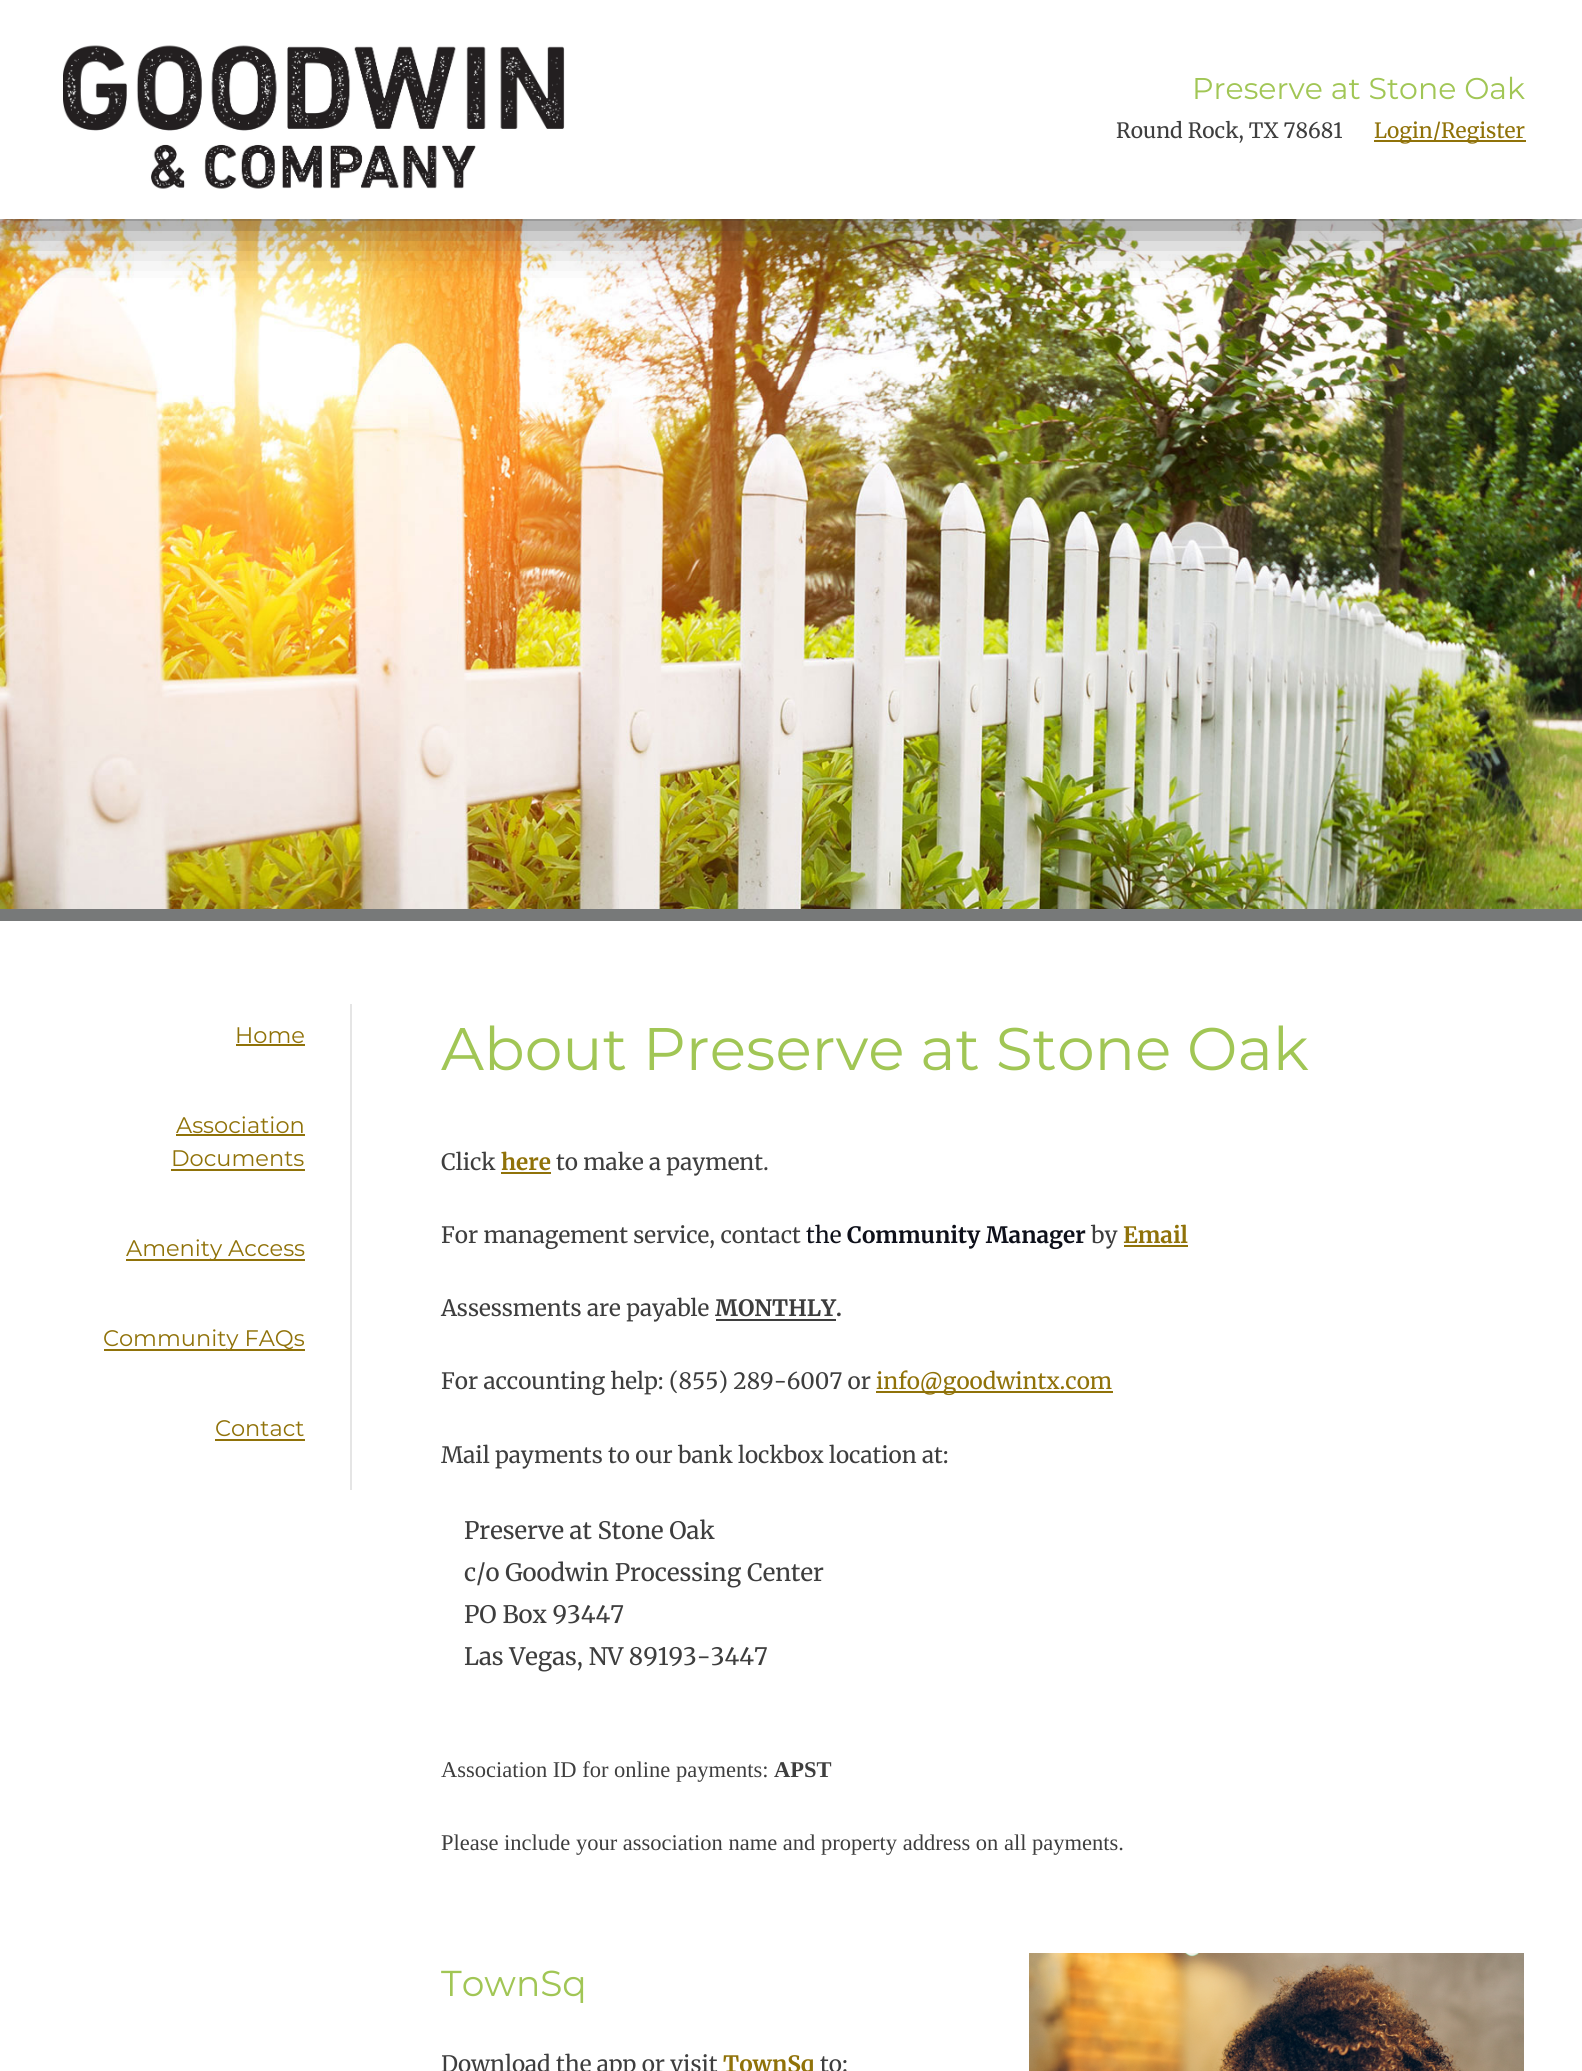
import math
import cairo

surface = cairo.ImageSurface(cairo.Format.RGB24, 1582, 2071)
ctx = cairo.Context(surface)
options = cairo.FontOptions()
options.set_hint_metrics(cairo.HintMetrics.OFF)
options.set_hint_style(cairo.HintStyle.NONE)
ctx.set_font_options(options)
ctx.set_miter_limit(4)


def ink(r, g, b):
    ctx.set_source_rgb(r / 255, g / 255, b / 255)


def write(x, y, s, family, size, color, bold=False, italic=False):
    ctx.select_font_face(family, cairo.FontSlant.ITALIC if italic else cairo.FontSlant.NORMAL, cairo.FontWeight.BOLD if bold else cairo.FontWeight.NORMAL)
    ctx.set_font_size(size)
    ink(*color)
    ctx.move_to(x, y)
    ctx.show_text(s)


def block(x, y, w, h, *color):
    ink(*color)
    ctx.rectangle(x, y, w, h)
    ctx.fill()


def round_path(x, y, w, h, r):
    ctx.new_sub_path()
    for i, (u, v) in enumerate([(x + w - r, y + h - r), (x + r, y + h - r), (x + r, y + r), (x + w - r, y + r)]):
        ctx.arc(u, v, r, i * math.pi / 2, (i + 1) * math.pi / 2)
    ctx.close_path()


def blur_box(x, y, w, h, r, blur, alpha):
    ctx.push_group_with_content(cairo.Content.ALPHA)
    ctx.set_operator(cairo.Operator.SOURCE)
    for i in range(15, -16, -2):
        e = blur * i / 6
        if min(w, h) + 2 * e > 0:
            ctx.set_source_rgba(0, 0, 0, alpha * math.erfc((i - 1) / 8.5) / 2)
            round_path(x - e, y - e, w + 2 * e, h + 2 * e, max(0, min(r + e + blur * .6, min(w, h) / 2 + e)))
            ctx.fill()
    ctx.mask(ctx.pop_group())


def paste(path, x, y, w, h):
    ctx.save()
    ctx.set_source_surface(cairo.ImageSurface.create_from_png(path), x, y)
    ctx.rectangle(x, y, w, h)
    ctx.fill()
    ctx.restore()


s1 = dict(family="Montserrat", size=30, color=(161, 198, 85))
s2 = dict(family="Merriweather", size=21, color=(62, 62, 62))
s3 = dict(family="Merriweather", size=21, color=(144, 114, 9))
s4 = dict(family="Montserrat", size=22.5, color=(144, 114, 9))
s5 = dict(family="Montserrat", size=60, color=(161, 198, 85))
s6 = dict(family="Merriweather", size=22.5, color=(62, 62, 62))
s7 = dict(family="Merriweather", size=22.5, color=(144, 114, 9), bold=True)
s8 = dict(family="Merriweather", size=22.5, color=(14, 16, 26))
s9 = dict(family="Merriweather", size=22.5, color=(14, 16, 26), bold=True)
s10 = dict(family="Merriweather", size=22.5, color=(62, 62, 62), bold=True)
s11 = dict(family="Merriweather", size=22.5, color=(144, 114, 9))
s12 = dict(family="Merriweather", size=24, color=(62, 62, 62))
s13 = dict(family="Liberation Serif", size=22.5, color=(62, 62, 62))
s14 = dict(family="Liberation Serif", size=22.5, color=(62, 62, 62), bold=True)
s15 = dict(family="Montserrat", size=36, color=(161, 198, 85))

ink(255, 255, 255)
ctx.paint()
paste("pic2.png", 0, 219, 1582, 690)
ctx.save()
ctx.rectangle(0, 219, 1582, 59)
ctx.clip()
ink(54, 54, 54)
blur_box(-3, -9, 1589, 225, 0, 30, 1)
ctx.restore()
paste("pic1.png", 62, 45, 503, 144)
write(1192, 99, "Preserve at Stone Oak", **s1)
write(1116, 138, "Round Rock, TX 78681", **s2)
block(1374, 140, 152, 2, 144, 114, 9)
write(1374, 138, "Login/Register", **s3)
block(0, 909, 1582, 12, 119, 121, 121)
block(350, 1004, 2, 486, 229, 229, 229)
write(235, 1043, "Home", **s4)
block(236, 1044, 69, 2, 144, 114, 9)
write(176, 1133, "Association", **s4)
block(176, 1134, 129, 2, 144, 114, 9)
write(171, 1166, "Documents", **s4)
block(171, 1169, 134, 2, 144, 114, 9)
block(126, 1259, 179, 2, 144, 114, 9)
write(126, 1256, "Amenity Access", **s4)
block(104, 1349, 201, 2, 144, 114, 9)
write(103, 1346, "Community FAQs", **s4)
write(215, 1436, "Contact", **s4)
block(215, 1439, 90, 2, 144, 114, 9)
write(441, 1070, "About Preserve at Stone Oak", **s5)
write(441, 1170, "Click", **s6)
write(501, 1170, "here", **s7)
block(501, 1172, 50, 2, 144, 114, 9)
write(556, 1170, "to make a payment.", **s6)
write(441, 1243, "For management service, contact", **s6)
write(806, 1243, "the", **s8)
write(847, 1243, "Community Manager", **s9)
write(1091, 1243, "by", **s6)
write(1123, 1243, "Email", **s7)
block(1124, 1245, 64, 2, 144, 114, 9)
write(441, 1316, "Assessments are payable", **s6)
write(715, 1316, "MONTHLY.", **s10)
block(716, 1319, 120, 2, 62, 62, 62)
write(441, 1389, "For accounting help: (855) 289-6007 or", **s6)
block(876, 1391, 237, 2, 144, 114, 9)
write(876, 1389, "info@goodwintx.com", **s11)
write(441, 1463, "Mail payments to our bank lockbox location at:", **s6)
write(464, 1539, "Preserve at Stone Oak", **s12)
write(464, 1581, "c/o Goodwin Processing Center", **s12)
write(464, 1623, "PO Box 93447", **s12)
write(464, 1665, "Las Vegas, NV 89193-3447", **s12)
write(441, 1777, "Association ID for online payments:", **s13)
write(774, 1777, "APST", **s14)
write(441, 1850, "Please include your association name and property address on all payments.", **s13)
write(441, 1996, "TownSq", **s15)
paste("pic3.png", 1029, 1953, 495, 118)
write(441, 2072, "Download the app or visit", **s6)
write(723, 2072, "TownSq", **s7)
write(820, 2072, "to:", **s6)
surface.write_to_png("screenshot.png")
